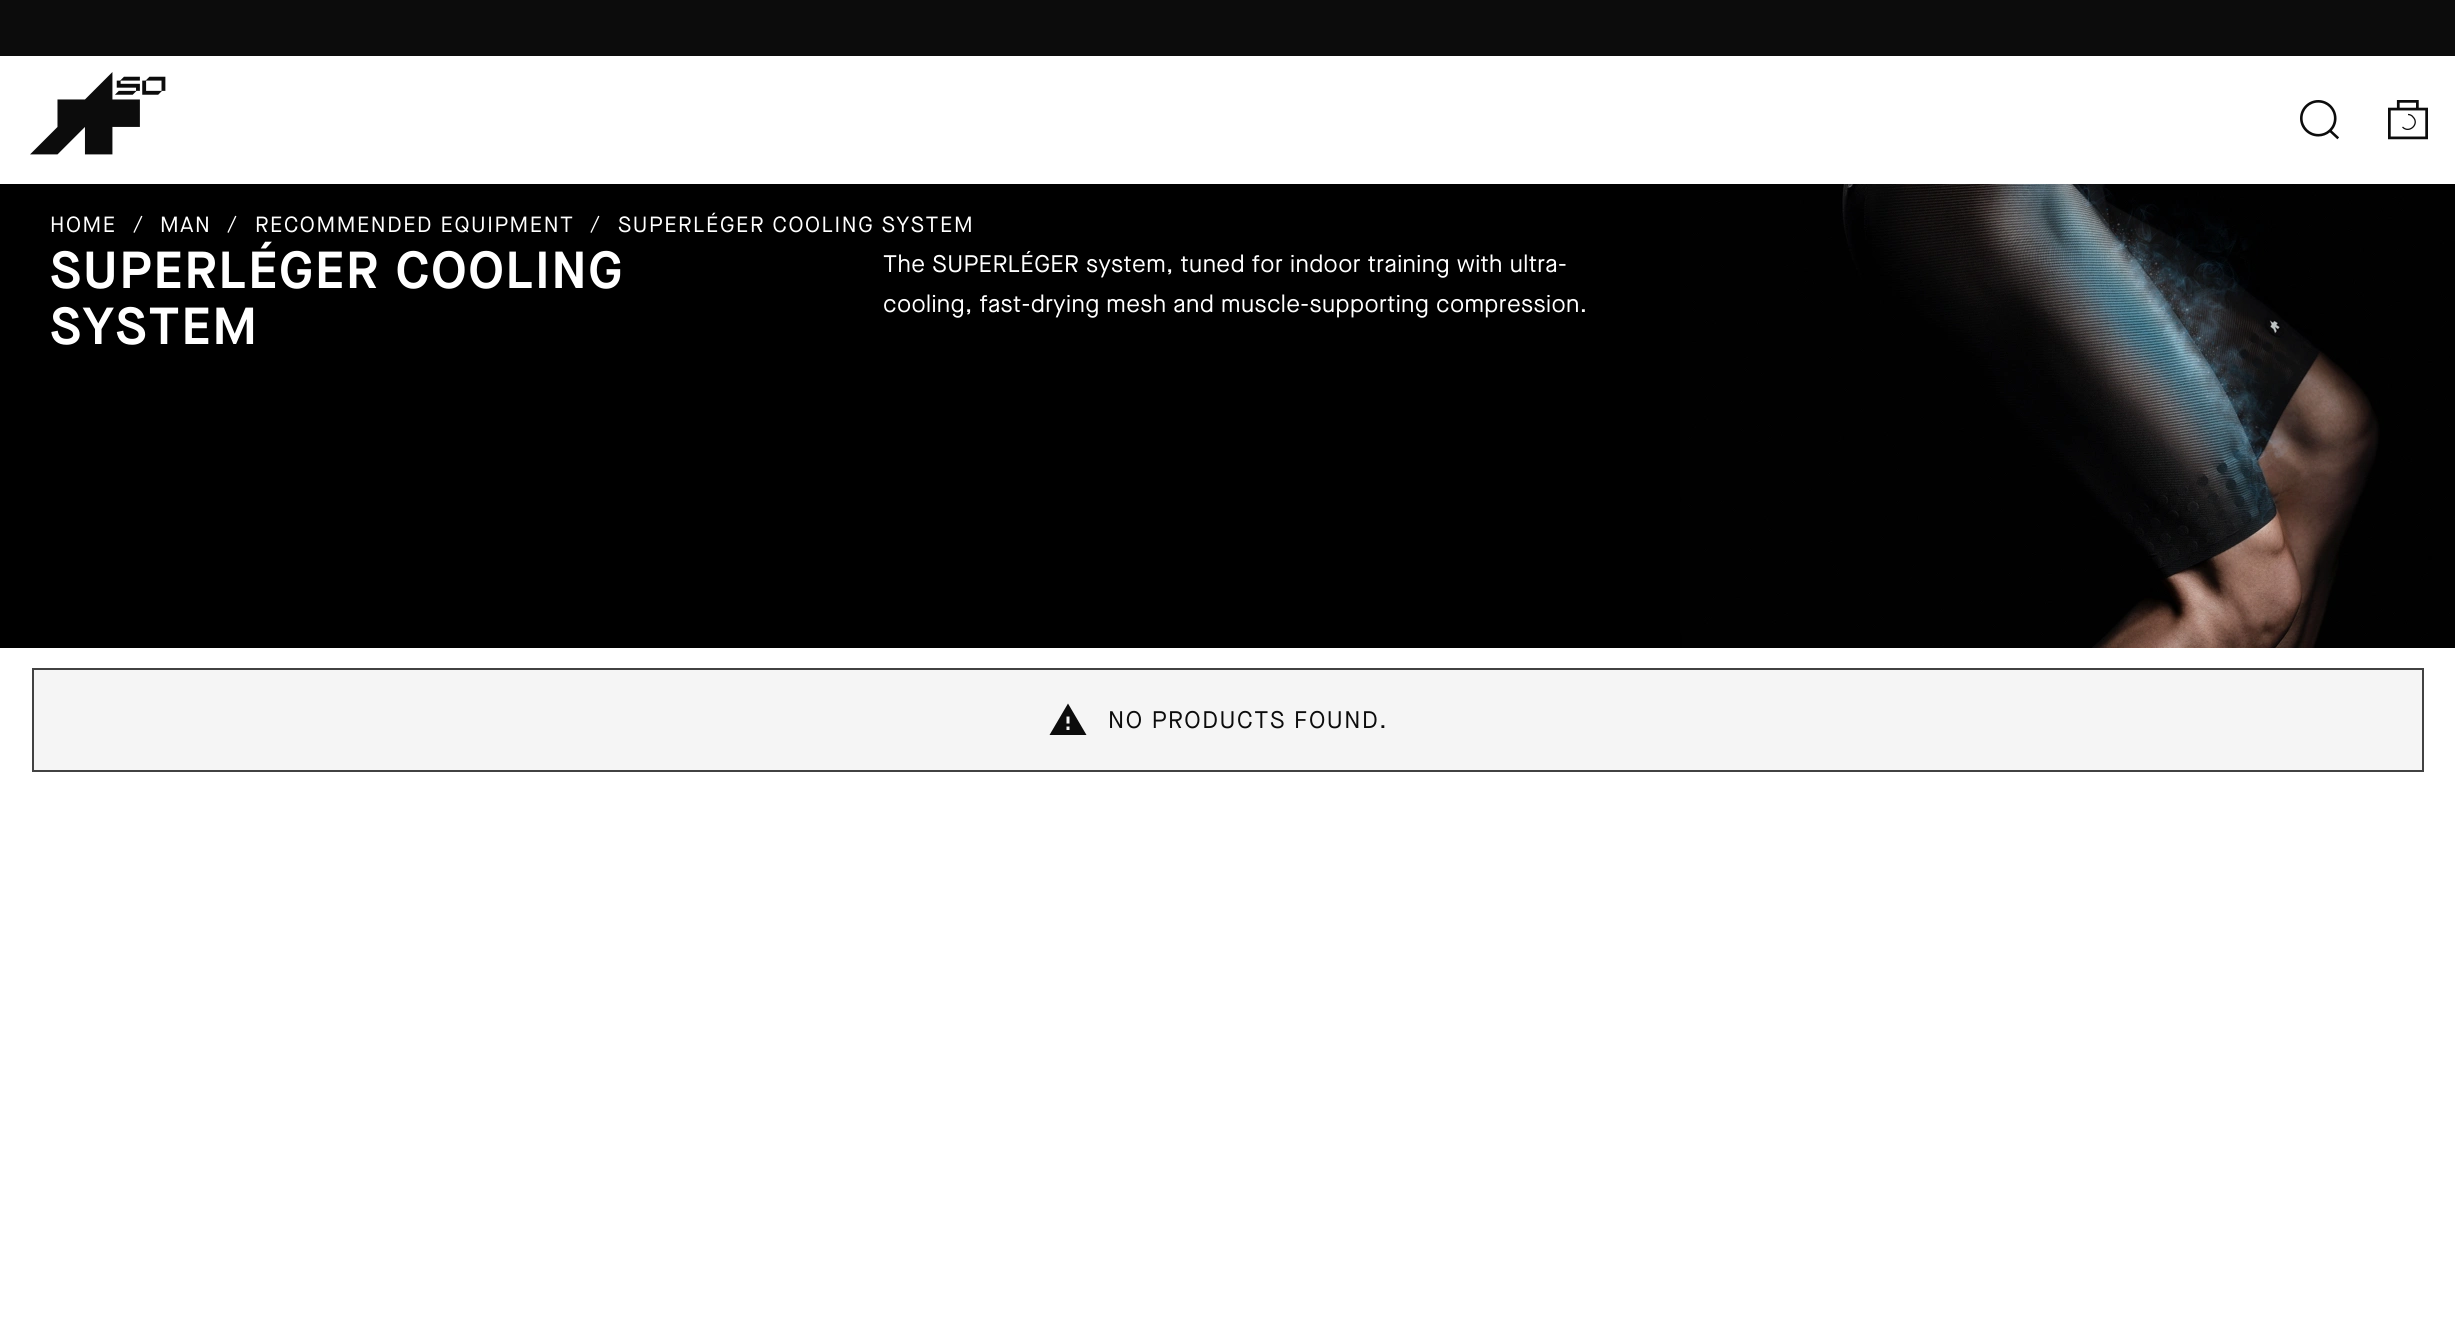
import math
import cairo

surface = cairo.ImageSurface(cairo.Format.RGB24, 2455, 1318)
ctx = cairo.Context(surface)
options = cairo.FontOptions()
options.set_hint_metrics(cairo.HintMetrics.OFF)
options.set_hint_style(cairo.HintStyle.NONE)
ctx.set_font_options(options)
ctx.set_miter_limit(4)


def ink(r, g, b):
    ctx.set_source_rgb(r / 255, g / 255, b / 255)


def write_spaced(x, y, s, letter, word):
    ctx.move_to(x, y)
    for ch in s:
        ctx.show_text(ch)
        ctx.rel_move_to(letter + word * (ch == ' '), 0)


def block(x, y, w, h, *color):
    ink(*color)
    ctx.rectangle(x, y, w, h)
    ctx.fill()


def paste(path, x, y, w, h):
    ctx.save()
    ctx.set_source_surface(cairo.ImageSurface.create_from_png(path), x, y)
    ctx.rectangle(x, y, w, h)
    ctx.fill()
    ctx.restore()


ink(255, 255, 255)
ctx.paint()
block(0, 0, 2455, 56, 12, 12, 12)
paste("pic1.png", 30, 72, 136, 83)
paste("pic2.png", 2300, 100, 39, 40)
paste("pic3.png", 2388, 100, 40, 40)
ctx.new_path()
ctx.move_to(2408, 114.5)
ctx.curve_to(2410, 114.5, 2412, 115.5, 2413, 117)
ctx.curve_to(2420, 124, 2409, 134, 2402.5, 127)
ctx.set_line_width(1.3)
ctx.stroke()
paste("pic4.png", 0, 184, 2455, 464)
ctx.select_font_face("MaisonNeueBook")
ctx.set_font_size(22)
ink(255, 255, 255)
write_spaced(50, 232, "HOME", 1.6, 0)
write_spaced(133, 232, "/", 1.6, 0)
write_spaced(160, 232, "MAN", 1.6, 0)
write_spaced(227, 232, "/", 1.6, 0)
write_spaced(255, 232, "RECOMMENDED EQUIPMENT", 1.6, 0)
write_spaced(590, 232, "/", 1.6, 0)
write_spaced(618, 232, "SUPERLÉGER COOLING SYSTEM", 1.6, 0)
ctx.select_font_face("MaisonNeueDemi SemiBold")
ctx.set_font_size(52)
write_spaced(50, 288, "SUPERLÉGER COOLING", 2, 0)
write_spaced(50, 344, "SYSTEM", 2, 0)
ctx.select_font_face("MaisonNeueBook")
ctx.set_font_size(24)
write_spaced(883, 272, "The SUPERLÉGER system, tuned for indoor training with ultra-", 0.4, 0)
write_spaced(883, 312, "cooling, fast-drying mesh and muscle-supporting compression.", 0.4, 0)
ink(245, 245, 245)
ctx.rectangle(33, 669, 2390, 102)
ctx.fill_preserve()
ink(66, 66, 66)
ctx.set_line_width(2)
ctx.stroke()
ink(12, 12, 12)
ctx.new_path()
ctx.move_to(1049.5, 735)
ctx.line_to(1086.5, 735)
ctx.line_to(1068, 703.5)
ctx.close_path()
ctx.move_to(1069.5, 730)
ctx.line_to(1066.5, 730)
ctx.line_to(1066.5, 726.5)
ctx.line_to(1069.5, 726.5)
ctx.close_path()
ctx.move_to(1069.5, 723.5)
ctx.line_to(1066.5, 723.5)
ctx.line_to(1066.5, 716.5)
ctx.line_to(1069.5, 716.5)
ctx.close_path()
ctx.fill()
write_spaced(1108, 728, "NO PRODUCTS FOUND.", 1.6, 0)
surface.write_to_png("screenshot.png")
